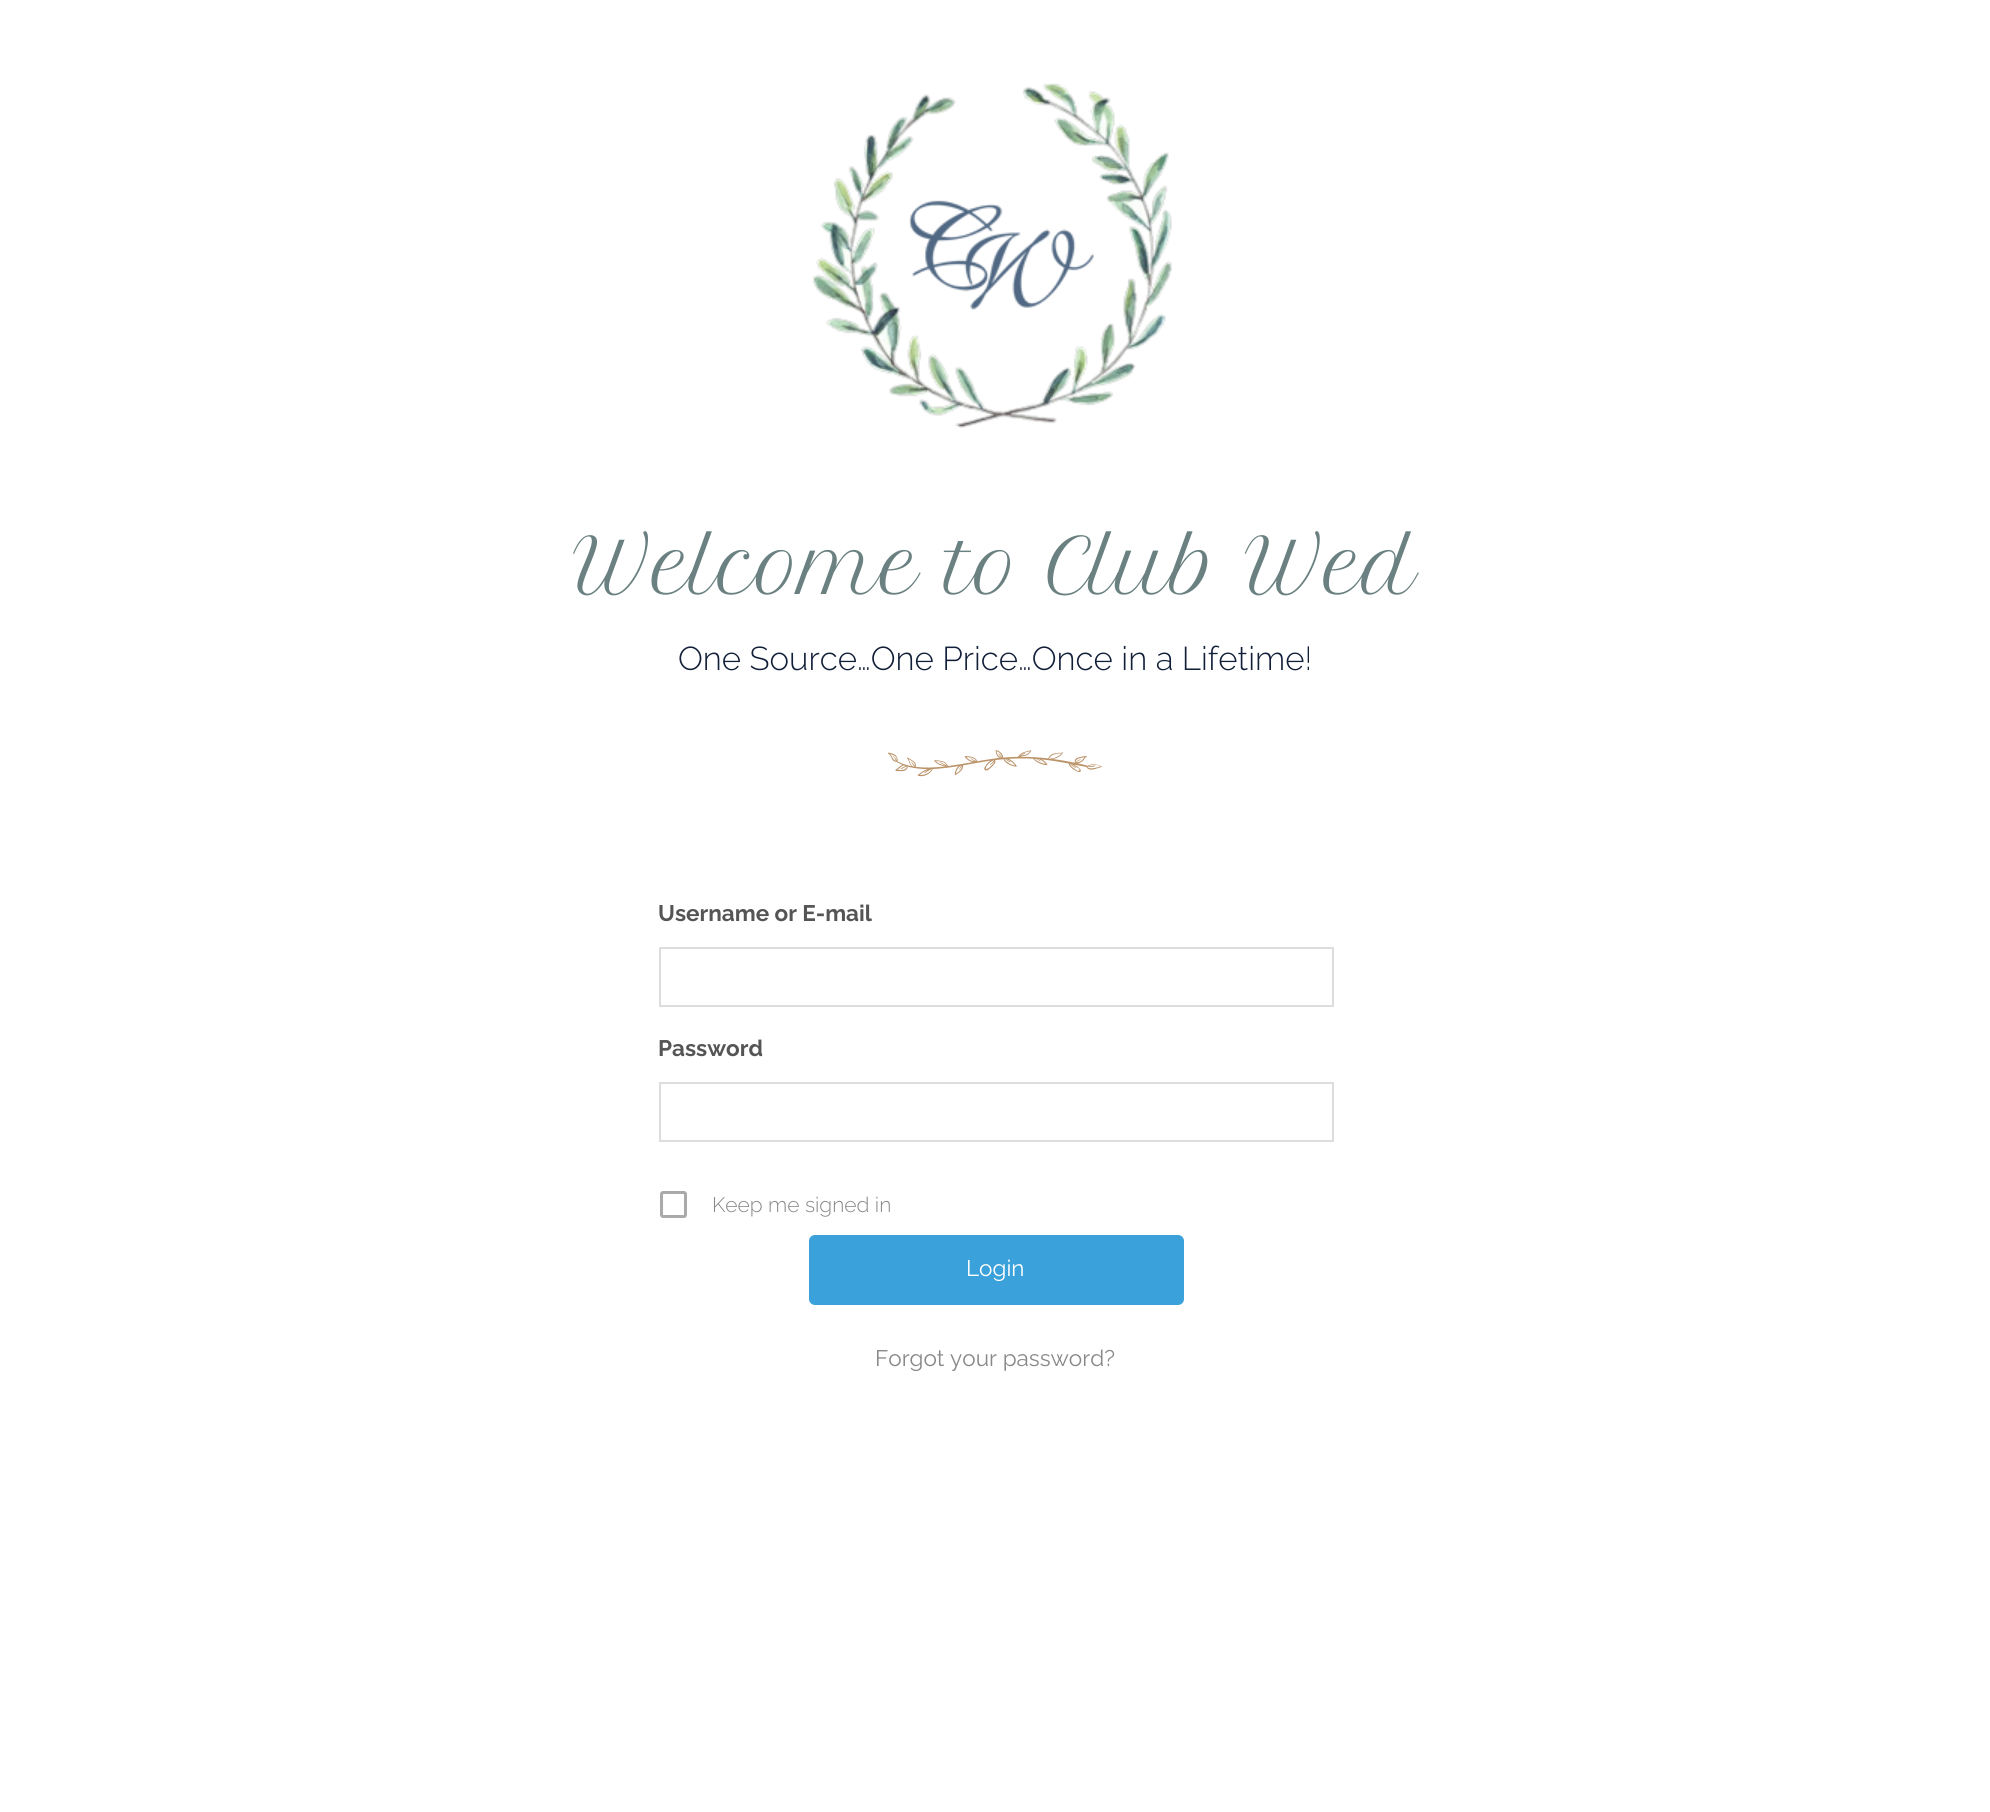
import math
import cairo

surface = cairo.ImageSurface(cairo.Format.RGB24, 1990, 1812)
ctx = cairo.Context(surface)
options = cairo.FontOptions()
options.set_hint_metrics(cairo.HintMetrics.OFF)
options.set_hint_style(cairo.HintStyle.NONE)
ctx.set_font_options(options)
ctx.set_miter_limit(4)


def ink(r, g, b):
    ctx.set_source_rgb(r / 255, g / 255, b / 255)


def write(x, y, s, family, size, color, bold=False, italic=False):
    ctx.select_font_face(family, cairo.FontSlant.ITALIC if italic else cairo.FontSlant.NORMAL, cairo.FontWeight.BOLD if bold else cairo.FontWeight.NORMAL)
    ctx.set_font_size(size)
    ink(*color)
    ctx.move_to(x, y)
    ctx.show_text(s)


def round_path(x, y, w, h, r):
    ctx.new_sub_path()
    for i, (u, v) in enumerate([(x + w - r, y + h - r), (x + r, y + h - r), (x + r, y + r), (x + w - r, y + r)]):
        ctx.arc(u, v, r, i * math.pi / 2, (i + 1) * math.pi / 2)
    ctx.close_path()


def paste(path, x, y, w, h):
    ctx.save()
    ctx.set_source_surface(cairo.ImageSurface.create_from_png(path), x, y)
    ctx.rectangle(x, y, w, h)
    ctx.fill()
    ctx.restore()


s1 = dict(family="Petit Formal Script", size=75, color=(107, 129, 129))
s2 = dict(family="Raleway Light", size=33, color=(18, 31, 56))
s3 = dict(family="Raleway", size=22.5, color=(85, 85, 85), bold=True)
s4 = dict(family="Raleway Light", size=21, color=(136, 136, 136))
s5 = dict(family="Raleway", size=22.5, color=(255, 255, 255))
s6 = dict(family="Raleway", size=22.5, color=(136, 136, 136))

ink(255, 255, 255)
ctx.paint()
paste("pic1.png", 812, 83, 360, 345)
write(573, 594, "Welcome to Club Wed", **s1)
write(678, 670, "One Source…One Price…Once in a Lifetime!", **s2)
paste("pic2.png", 888, 750, 214, 27)
write(658, 921, "Username or E-mail", **s3)
ctx.rectangle(660, 948, 673, 58)
ink(221, 221, 221)
ctx.stroke()
write(658, 1056, "Password", **s3)
ctx.rectangle(660, 1083, 673, 58)
ink(221, 221, 221)
ctx.stroke()
paste("pic3.png", 660, 1191, 27, 27)
write(712, 1212, "Keep me signed in", **s4)
ink(59, 161, 218)
round_path(809, 1235, 375, 70, 6)
ctx.fill()
write(966, 1276, "Login", **s5)
write(875, 1366, "Forgot your password?", **s6)
surface.write_to_png("screenshot.png")
